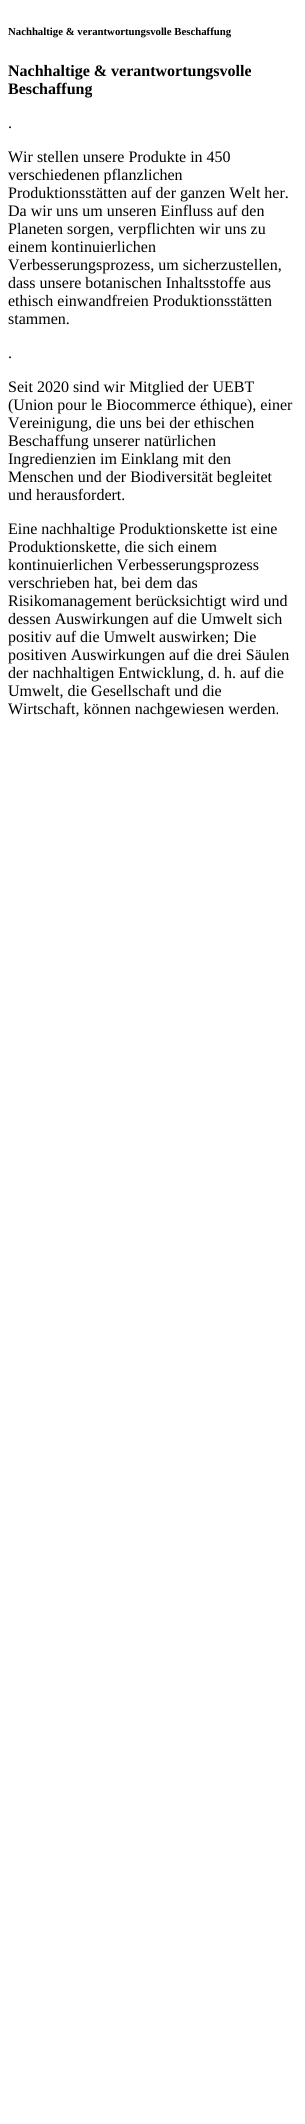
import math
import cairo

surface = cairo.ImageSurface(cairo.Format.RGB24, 305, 2124)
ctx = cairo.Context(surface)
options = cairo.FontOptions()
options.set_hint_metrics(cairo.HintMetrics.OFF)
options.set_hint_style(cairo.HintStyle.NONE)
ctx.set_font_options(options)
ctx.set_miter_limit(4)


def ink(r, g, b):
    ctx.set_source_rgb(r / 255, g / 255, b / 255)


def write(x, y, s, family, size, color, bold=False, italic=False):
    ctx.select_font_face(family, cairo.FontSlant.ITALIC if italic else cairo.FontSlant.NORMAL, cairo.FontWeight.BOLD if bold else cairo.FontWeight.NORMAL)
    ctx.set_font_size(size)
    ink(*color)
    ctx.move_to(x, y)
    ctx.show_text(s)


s1 = dict(family="Liberation Serif", size=10.75, color=(0, 0, 0), bold=True)
s2 = dict(family="Liberation Serif", size=16, color=(0, 0, 0), bold=True)
s3 = dict(family="Liberation Serif", size=16, color=(0, 0, 0))

ink(255, 255, 255)
ctx.paint()
write(8, 35, "Nachhaltige & verantwortungsvolle Beschaffung", **s1)
write(8, 76, "Nachhaltige & verantwortungsvolle", **s2)
write(8, 94, "Beschaffung", **s2)
write(8, 128, ".", **s3)
write(8, 162, "Wir stellen unsere Produkte in 450", **s3)
write(8, 180, "verschiedenen pflanzlichen", **s3)
write(8, 198, "Produktionsstätten auf der ganzen Welt her.", **s3)
write(8, 216, "Da wir uns um unseren Einfluss auf den", **s3)
write(8, 234, "Planeten sorgen, verpflichten wir uns zu", **s3)
write(8, 252, "einem kontinuierlichen", **s3)
write(8, 270, "Verbesserungsprozess, um sicherzustellen,", **s3)
write(8, 288, "dass unsere botanischen Inhaltsstoffe aus", **s3)
write(8, 306, "ethisch einwandfreien Produktionsstätten", **s3)
write(8, 324, "stammen.", **s3)
write(8, 358, ".", **s3)
write(8, 392, "Seit 2020 sind wir Mitglied der UEBT", **s3)
write(8, 410, "(Union pour le Biocommerce éthique), einer", **s3)
write(8, 428, "Vereinigung, die uns bei der ethischen", **s3)
write(8, 446, "Beschaffung unserer natürlichen", **s3)
write(8, 464, "Ingredienzien im Einklang mit den", **s3)
write(8, 482, "Menschen und der Biodiversität begleitet", **s3)
write(8, 500, "und herausfordert.", **s3)
write(8, 534, "Eine nachhaltige Produktionskette ist eine", **s3)
write(8, 552, "Produktionskette, die sich einem", **s3)
write(8, 570, "kontinuierlichen Verbesserungsprozess", **s3)
write(8, 588, "verschrieben hat, bei dem das", **s3)
write(8, 606, "Risikomanagement berücksichtigt wird und", **s3)
write(8, 624, "dessen Auswirkungen auf die Umwelt sich", **s3)
write(8, 642, "positiv auf die Umwelt auswirken; Die", **s3)
write(8, 660, "positiven Auswirkungen auf die drei Säulen", **s3)
write(8, 678, "der nachhaltigen Entwicklung, d. h. auf die", **s3)
write(8, 696, "Umwelt, die Gesellschaft und die", **s3)
write(8, 714, "Wirtschaft, können nachgewiesen werden.", **s3)
surface.write_to_png("screenshot.png")
